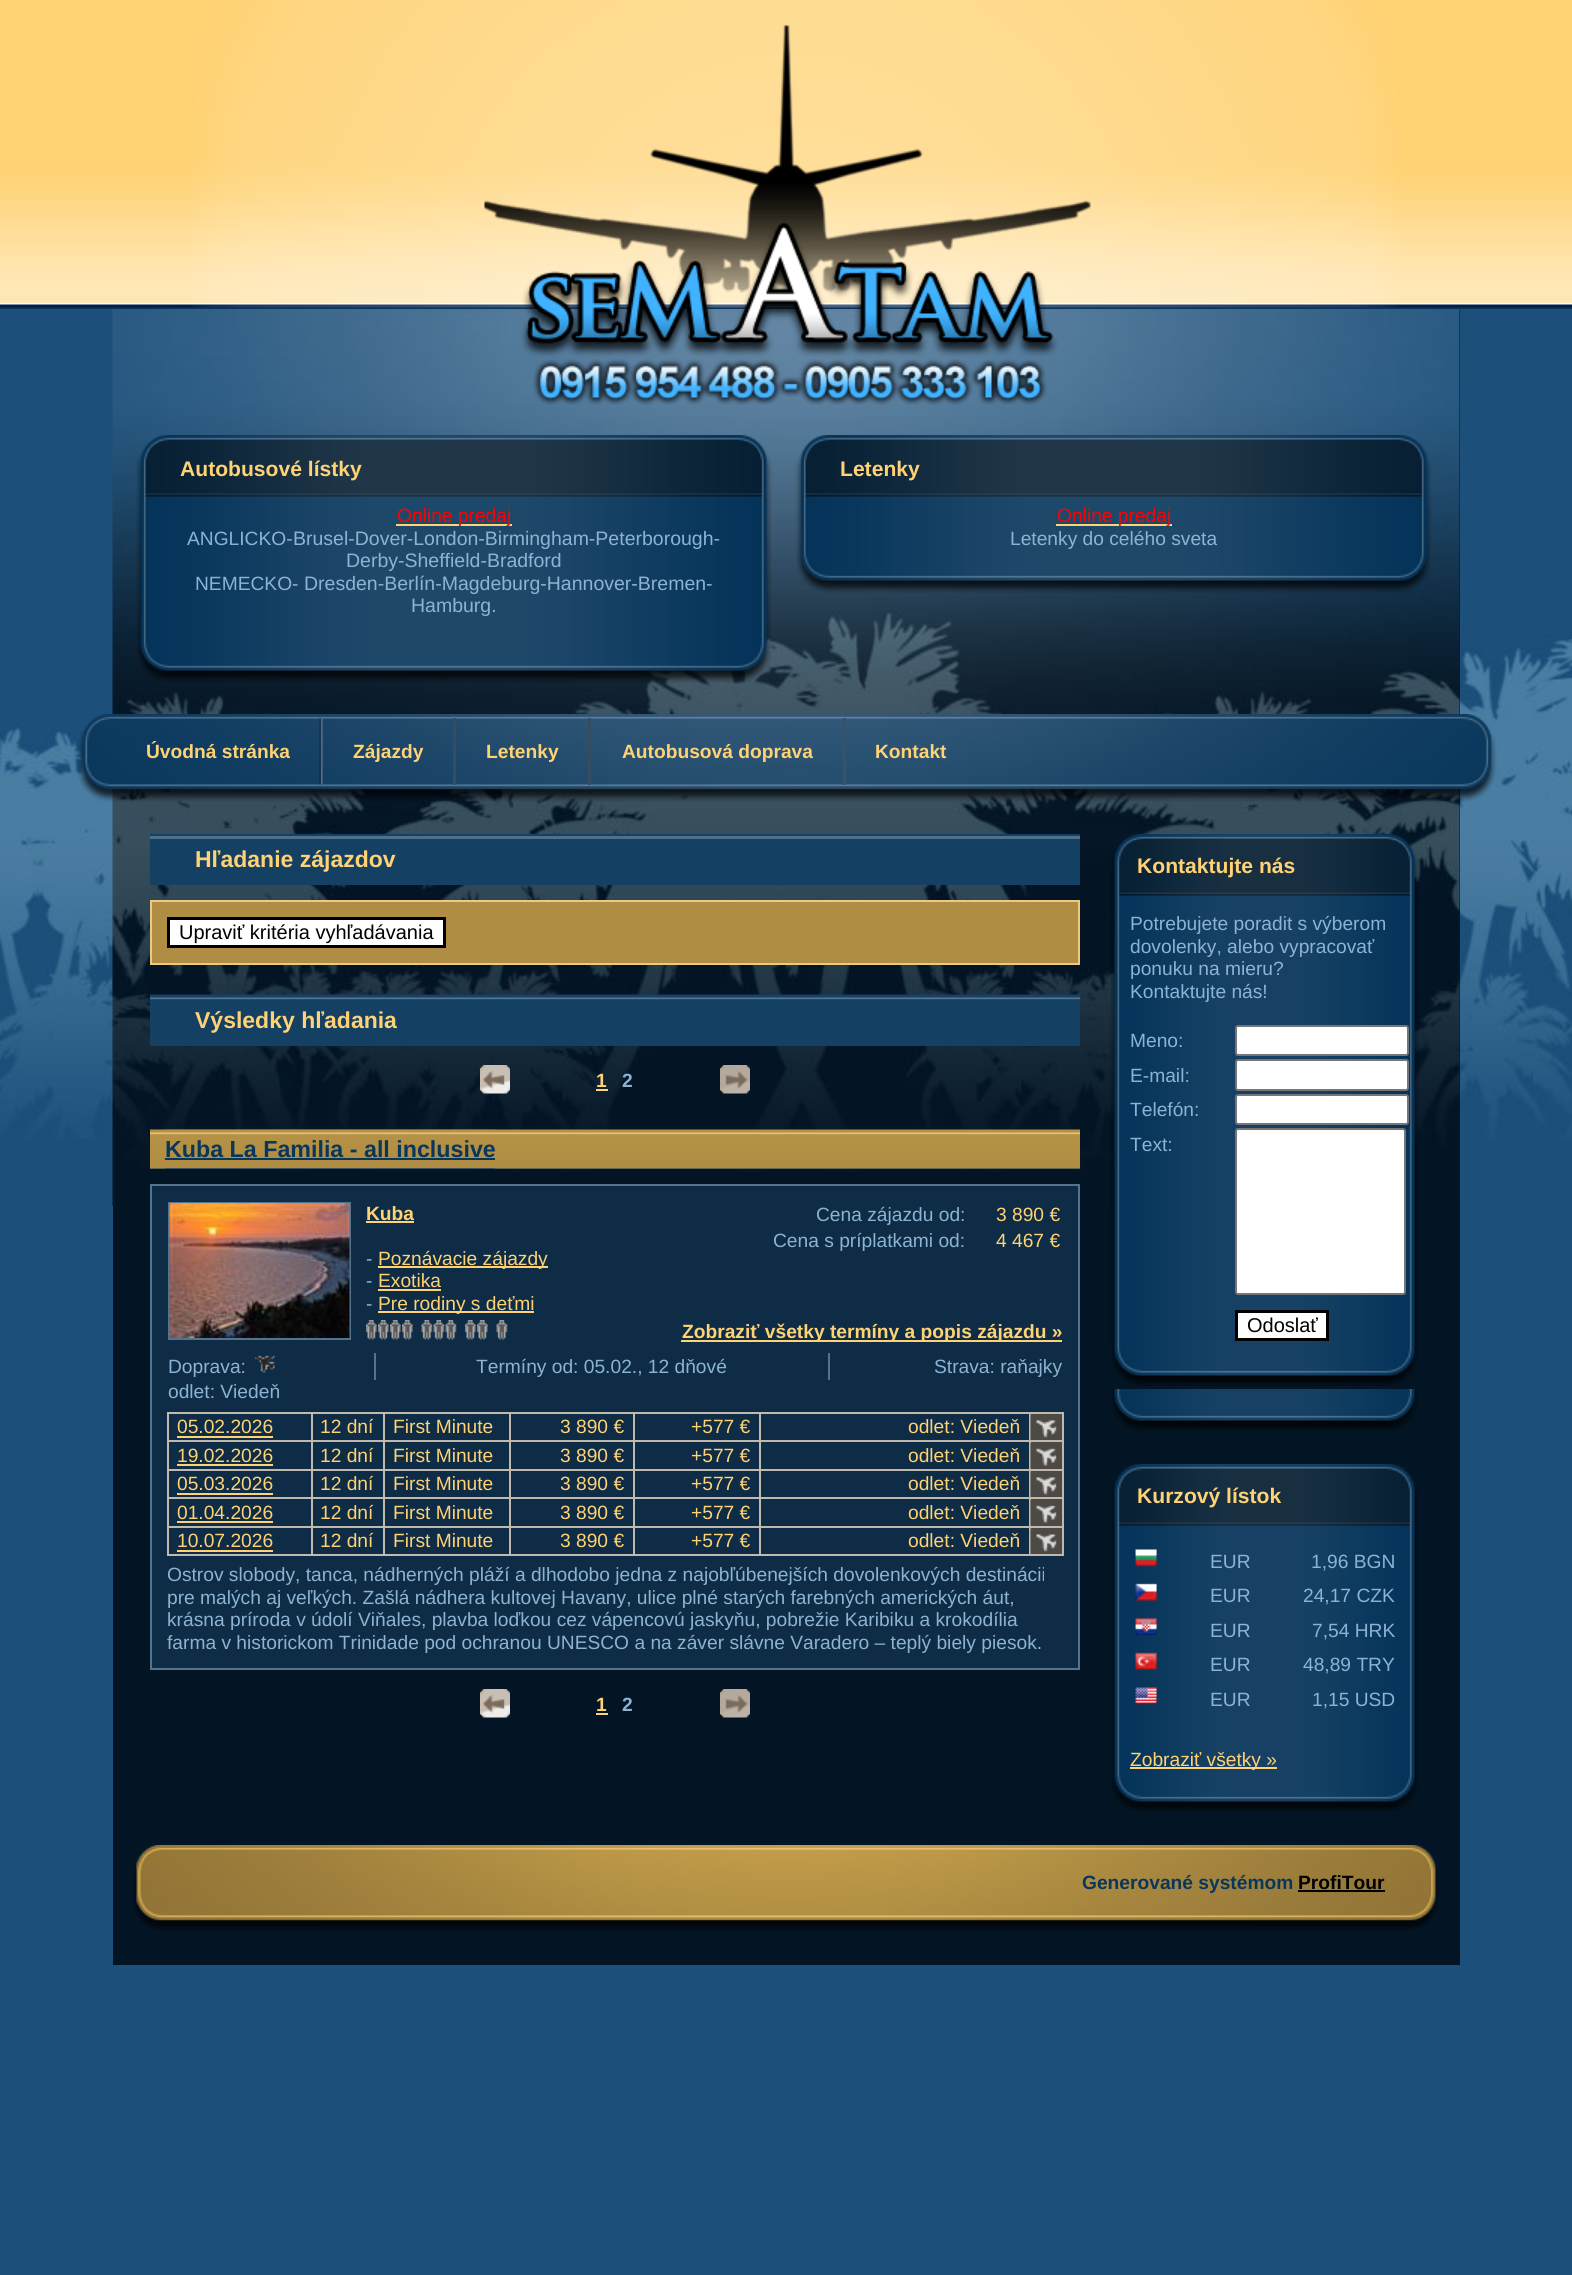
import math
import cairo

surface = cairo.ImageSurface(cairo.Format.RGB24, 1572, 2275)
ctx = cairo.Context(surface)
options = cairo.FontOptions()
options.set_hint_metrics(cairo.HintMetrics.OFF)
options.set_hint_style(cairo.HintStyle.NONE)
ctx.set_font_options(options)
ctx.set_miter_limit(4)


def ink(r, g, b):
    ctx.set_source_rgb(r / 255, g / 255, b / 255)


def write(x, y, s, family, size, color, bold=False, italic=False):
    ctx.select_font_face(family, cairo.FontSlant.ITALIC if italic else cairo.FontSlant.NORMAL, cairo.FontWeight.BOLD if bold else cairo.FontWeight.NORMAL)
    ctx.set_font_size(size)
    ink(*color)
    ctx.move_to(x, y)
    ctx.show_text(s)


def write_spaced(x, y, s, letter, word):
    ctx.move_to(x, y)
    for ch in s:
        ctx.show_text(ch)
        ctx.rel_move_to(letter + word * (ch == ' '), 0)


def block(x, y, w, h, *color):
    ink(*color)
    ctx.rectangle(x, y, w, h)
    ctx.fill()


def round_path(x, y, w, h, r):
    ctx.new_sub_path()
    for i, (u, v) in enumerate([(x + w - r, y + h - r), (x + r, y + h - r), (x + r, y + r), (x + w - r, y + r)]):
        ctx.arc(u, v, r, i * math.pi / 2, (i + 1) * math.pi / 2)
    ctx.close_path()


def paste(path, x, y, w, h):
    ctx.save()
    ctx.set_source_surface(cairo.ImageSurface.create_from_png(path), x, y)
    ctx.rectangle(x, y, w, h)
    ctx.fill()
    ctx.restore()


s1 = dict(family="Liberation Sans", size=21.1, color=(255, 210, 116), bold=True)
s2 = dict(family="Liberation Sans", size=19.2, color=(255, 0, 0))
s3 = dict(family="Liberation Sans", size=19.2, color=(140, 179, 211))
s4 = dict(family="Liberation Sans", size=19.5, color=(140, 179, 211))
s5 = dict(family="Liberation Sans", size=19.2, color=(255, 210, 116), bold=True)
s6 = dict(family="Liberation Sans", size=23, color=(255, 210, 116), bold=True)
s7 = dict(family="Liberation Sans", size=20, color=(0, 0, 0))
s8 = dict(family="Liberation Sans", size=23.25, color=(9, 55, 92), bold=True)
s9 = dict(family="Liberation Sans", size=19.2, color=(255, 210, 116))
s10 = dict(family="Liberation Sans", size=19.2, color=(9, 55, 92), bold=True)
s11 = dict(family="Liberation Sans", size=19.2, color=(0, 0, 0), bold=True)

ink(28, 79, 122)
ctx.paint()
paste("pic1.png", 0, 612, 1572, 527)
paste("pic2.png", 0, 0, 1572, 309)
paste("pic3.png", 193, 0, 1204, 309)
block(113, 309, 1347, 1656, 3, 21, 36)
paste("pic4.png", 112, 309, 1348, 897)
paste("pic5.png", 521, 309, 537, 96)
paste("pic6.png", 136, 435, 636, 204)
write(180, 476, "Autobusové lístky", **s1)
block(396, 524, 116, 2, 255, 210, 116)
write(397, 522, "Online predaj", **s2)
write(187, 545, "ANGLICKO-", **s3)
write(293, 545, "Brusel-Dover-London-Birmingham-Peterborough-", **s4)
write(346, 567, "Derby-Sheffield-Bradford", **s4)
write(195, 590, "NEMECKO-", **s3)
write(304, 590, "Dresden-Berlín-Magdeburg-Hannover-Bremen-", **s4)
write(411, 612, "Hamburg.", **s4)
paste("pic7.png", 137, 639, 635, 44)
paste("pic8.png", 795, 435, 637, 114)
write(840, 476, "Letenky", **s1)
block(1056, 524, 116, 2, 255, 210, 116)
write(1057, 522, "Online predaj", **s2)
write(1010, 545, "Letenky do celého sveta", **s3)
paste("pic9.png", 796, 549, 635, 44)
paste("pic10.png", 77, 714, 1420, 88)
write(146, 758, "Úvodná stránka", **s5)
paste("pic11.png", 319, 718, 4, 67)
write(353, 758, "Zájazdy", **s5)
block(453, 718, 3, 67, 51, 77, 99)
write(486, 758, "Letenky", **s5)
block(588, 718, 3, 67, 51, 77, 99)
write(622, 758, "Autobusová doprava", **s5)
block(843, 718, 3, 67, 56, 83, 105)
write(875, 758, "Kontakt", **s5)
block(150, 834, 930, 51, 20, 64, 100)
block(150, 836, 930, 3, 78, 112, 138)
write(195, 867, "Hľadanie zájazdov", **s6)
ink(175, 141, 66)
ctx.rectangle(151, 901, 928, 63)
ctx.fill_preserve()
ink(236, 202, 129)
ctx.stroke()
ink(255, 255, 255)
ctx.rectangle(168.5, 918.5, 276, 28)
ctx.fill_preserve()
ink(0, 0, 0)
ctx.set_line_width(3)
ctx.stroke()
write(179, 939, "Upraviť kritéria vyhľadávania", **s7)
block(150, 1000, 930, 46, 20, 64, 100)
paste("pic12.png", 150, 994, 930, 6)
write(195, 1028, "Výsledky hľadania", **s6)
paste("pic13.png", 480, 1065, 30, 29)
ctx.set_font_size(19.2)
write_spaced(596, 1087, "1", 2, 0)
block(596, 1089, 12, 2, 255, 210, 116)
ink(140, 179, 211)
write_spaced(622, 1087, "2", 2, 0)
paste("pic14.png", 720, 1065, 30, 29)
block(150, 1168, 930, 1, 20, 64, 100)
paste("pic15.png", 150, 1129, 930, 40)
block(165, 1168, 330, 1, 20, 64, 100)
paste("pic16.png", 165, 1129, 330, 40)
write(165, 1157, "Kuba La Familia - all inclusive", **s8)
block(165, 1158, 330, 2, 9, 55, 92)
ink(14, 44, 69)
ctx.rectangle(151, 1185, 928, 484)
ctx.fill_preserve()
ink(84, 116, 142)
ctx.set_line_width(2)
ctx.stroke()
ctx.rectangle(169, 1203, 181, 136)
ctx.stroke()
paste("pic17.png", 169, 1203, 181, 135)
write(366, 1220, "Kuba", **s5)
block(366, 1221, 48, 2, 255, 210, 116)
write(816, 1221, "Cena zájazdu od:", **s3)
write(996, 1221, "3 890 €", **s9)
write(773, 1247, "Cena s príplatkami od:", **s3)
write(996, 1247, "4 467 €", **s9)
write(366, 1265, "-", **s3)
block(378, 1266, 170, 2, 255, 210, 116)
write(378, 1265, "Poznávacie zájazdy", **s9)
write(366, 1287, "-", **s3)
write(378, 1287, "Exotika", **s9)
block(378, 1289, 63, 2, 255, 210, 116)
write(366, 1310, "-", **s3)
block(378, 1311, 156, 2, 255, 210, 116)
write(378, 1310, "Pre rodiny s deťmi", **s9)
paste("pic18.png", 366, 1320, 11, 20)
paste("pic18.png", 378, 1320, 11, 20)
paste("pic18.png", 390, 1320, 11, 20)
paste("pic18.png", 402, 1320, 11, 20)
paste("pic19.png", 421, 1320, 12, 20)
paste("pic19.png", 433, 1320, 12, 20)
paste("pic20.png", 445, 1320, 12, 20)
paste("pic18.png", 465, 1320, 11, 20)
paste("pic18.png", 477, 1320, 11, 20)
paste("pic20.png", 496, 1320, 12, 20)
block(681, 1340, 381, 2, 255, 210, 116)
write(682, 1338, "Zobraziť všetky termíny a popis zájazdu »", **s5)
block(374, 1353, 2, 27, 84, 116, 142)
write(168, 1373, "Doprava:", **s3)
paste("pic21.png", 254, 1355, 21, 18)
block(828, 1353, 2, 27, 84, 116, 142)
write(476, 1373, "Termíny od: 05.02., 12 dňové", **s3)
write(934, 1373, "Strava: raňajky", **s3)
write(168, 1398, "odlet: Viedeň", **s3)
block(1029, 1412, 35, 2, 194, 185, 174)
block(1029, 1440, 35, 2, 194, 185, 174)
block(1029, 1469, 35, 2, 194, 185, 174)
block(1029, 1497, 35, 2, 194, 185, 174)
block(1029, 1526, 35, 2, 194, 185, 174)
block(1062, 1526, 2, 30, 194, 185, 174)
block(1029, 1554, 35, 2, 194, 185, 174)
block(1029, 1526, 2, 30, 194, 185, 174)
block(759, 1526, 272, 2, 194, 185, 174)
block(1029, 1497, 2, 30, 194, 185, 174)
block(759, 1497, 272, 2, 194, 185, 174)
block(1029, 1469, 2, 30, 194, 185, 174)
block(759, 1469, 272, 2, 194, 185, 174)
block(1029, 1440, 2, 30, 194, 185, 174)
block(759, 1440, 272, 2, 194, 185, 174)
block(1029, 1412, 2, 30, 194, 185, 174)
block(759, 1412, 272, 2, 194, 185, 174)
block(759, 1554, 272, 2, 194, 185, 174)
block(759, 1526, 2, 30, 194, 185, 174)
block(633, 1526, 128, 2, 194, 185, 174)
block(759, 1497, 2, 30, 194, 185, 174)
block(633, 1497, 128, 2, 194, 185, 174)
block(759, 1469, 2, 30, 194, 185, 174)
block(633, 1469, 128, 2, 194, 185, 174)
block(759, 1440, 2, 30, 194, 185, 174)
block(633, 1440, 128, 2, 194, 185, 174)
block(759, 1412, 2, 30, 194, 185, 174)
block(633, 1412, 128, 2, 194, 185, 174)
block(633, 1554, 128, 2, 194, 185, 174)
block(633, 1526, 2, 30, 194, 185, 174)
block(509, 1526, 126, 2, 194, 185, 174)
block(633, 1497, 2, 30, 194, 185, 174)
block(509, 1497, 126, 2, 194, 185, 174)
block(633, 1469, 2, 30, 194, 185, 174)
block(509, 1469, 126, 2, 194, 185, 174)
block(633, 1440, 2, 30, 194, 185, 174)
block(509, 1440, 126, 2, 194, 185, 174)
block(633, 1412, 2, 30, 194, 185, 174)
block(509, 1412, 126, 2, 194, 185, 174)
block(509, 1554, 126, 2, 194, 185, 174)
block(509, 1526, 2, 30, 194, 185, 174)
block(383, 1526, 127, 2, 194, 185, 174)
block(509, 1497, 2, 30, 194, 185, 174)
block(383, 1497, 127, 2, 194, 185, 174)
block(509, 1469, 2, 30, 194, 185, 174)
block(383, 1469, 127, 2, 194, 185, 174)
block(509, 1440, 2, 30, 194, 185, 174)
block(383, 1440, 127, 2, 194, 185, 174)
block(509, 1412, 2, 30, 194, 185, 174)
block(383, 1412, 127, 2, 194, 185, 174)
block(383, 1554, 127, 2, 194, 185, 174)
block(383, 1526, 2, 30, 194, 185, 174)
block(311, 1526, 73, 2, 194, 185, 174)
block(383, 1497, 2, 30, 194, 185, 174)
block(311, 1497, 73, 2, 194, 185, 174)
block(383, 1469, 2, 30, 194, 185, 174)
block(311, 1469, 73, 2, 194, 185, 174)
block(383, 1440, 2, 30, 194, 185, 174)
block(311, 1440, 73, 2, 194, 185, 174)
block(383, 1412, 2, 30, 194, 185, 174)
block(311, 1412, 73, 2, 194, 185, 174)
block(311, 1554, 73, 2, 194, 185, 174)
block(311, 1526, 2, 30, 194, 185, 174)
block(167, 1526, 145, 2, 194, 185, 174)
block(311, 1497, 2, 30, 194, 185, 174)
block(167, 1497, 145, 2, 194, 185, 174)
block(311, 1469, 2, 30, 194, 185, 174)
block(167, 1469, 145, 2, 194, 185, 174)
block(311, 1440, 2, 30, 194, 185, 174)
block(167, 1440, 145, 2, 194, 185, 174)
block(311, 1412, 2, 30, 194, 185, 174)
block(167, 1412, 145, 2, 194, 185, 174)
block(167, 1554, 145, 2, 194, 185, 174)
block(167, 1526, 2, 30, 194, 185, 174)
block(167, 1497, 2, 30, 194, 185, 174)
block(167, 1469, 2, 30, 194, 185, 174)
block(167, 1440, 2, 30, 194, 185, 174)
block(167, 1412, 2, 30, 194, 185, 174)
write(177, 1433, "05.02.2026", **s9)
block(177, 1436, 96, 2, 255, 210, 116)
write(320, 1433, "12 dní", **s9)
write(393, 1433, "First Minute", **s9)
write(560, 1433, "3 890 €", **s9)
write(691, 1433, "+577 €", **s9)
write(908, 1433, "odlet: Viedeň", **s9)
block(1031, 1414, 31, 26, 77, 73, 69)
block(1062, 1497, 2, 30, 194, 185, 174)
block(1062, 1469, 2, 30, 194, 185, 174)
block(1062, 1440, 2, 30, 194, 185, 174)
block(1062, 1412, 2, 30, 194, 185, 174)
paste("pic22.png", 1030, 1414, 27, 26)
write(177, 1462, "19.02.2026", **s9)
block(177, 1464, 96, 2, 255, 210, 116)
write(320, 1462, "12 dní", **s9)
write(393, 1462, "First Minute", **s9)
write(560, 1462, "3 890 €", **s9)
write(691, 1462, "+577 €", **s9)
write(908, 1462, "odlet: Viedeň", **s9)
block(1031, 1442, 31, 27, 77, 73, 69)
paste("pic23.png", 1030, 1443, 27, 26)
write(177, 1490, "05.03.2026", **s9)
block(177, 1493, 96, 2, 255, 210, 116)
write(320, 1490, "12 dní", **s9)
write(393, 1490, "First Minute", **s9)
write(560, 1490, "3 890 €", **s9)
write(691, 1490, "+577 €", **s9)
write(908, 1490, "odlet: Viedeň", **s9)
block(1031, 1471, 31, 26, 77, 73, 69)
paste("pic22.png", 1030, 1471, 27, 26)
write(177, 1519, "01.04.2026", **s9)
block(177, 1521, 96, 2, 255, 210, 116)
write(320, 1519, "12 dní", **s9)
write(393, 1519, "First Minute", **s9)
write(560, 1519, "3 890 €", **s9)
write(691, 1519, "+577 €", **s9)
write(908, 1519, "odlet: Viedeň", **s9)
block(1031, 1499, 31, 27, 77, 73, 69)
paste("pic23.png", 1030, 1500, 27, 26)
write(177, 1547, "10.07.2026", **s9)
block(177, 1550, 96, 2, 255, 210, 116)
write(320, 1547, "12 dní", **s9)
write(393, 1547, "First Minute", **s9)
write(560, 1547, "3 890 €", **s9)
write(691, 1547, "+577 €", **s9)
write(908, 1547, "odlet: Viedeň", **s9)
block(1031, 1528, 31, 26, 77, 73, 69)
paste("pic22.png", 1030, 1528, 27, 26)
write(167, 1581, "Ostrov slobody, tanca, nádherných pláží a dlhodobo jedna z najobľúbenejších dovolenkových destinácii", **s3)
write(167, 1604, "pre malých aj veľkých. Zašlá nádhera kultovej Havany, ulice plné starých farebných amerických áut,", **s3)
write(167, 1626, "krásna príroda v údolí Viňales, plavba loďkou cez vápencovú jaskyňu, pobrežie Karibiku a krokodília", **s3)
write(167, 1649, "farma v historickom Trinidade pod ochranou UNESCO a na záver slávne Varadero – teplý biely piesok.", **s3)
paste("pic24.png", 480, 1689, 30, 29)
ctx.select_font_face("Liberation Sans", cairo.FontSlant.NORMAL, cairo.FontWeight.BOLD)
ink(255, 210, 116)
write_spaced(596, 1711, "1", 2, 0)
block(596, 1713, 12, 2, 255, 210, 116)
ink(140, 179, 211)
write_spaced(622, 1711, "2", 2, 0)
paste("pic25.png", 720, 1689, 30, 29)
paste("pic26.png", 1111, 1344, 307, 42)
paste("pic27.png", 1111, 834, 308, 63)
write(1137, 873, "Kontaktujte nás", **s1)
paste("pic28.png", 1110, 897, 309, 447)
write(1130, 930, "Potrebujete poradit s výberom", **s3)
write(1130, 953, "dovolenky, alebo vypracovať", **s3)
write(1130, 975, "ponuku na mieru?", **s3)
write(1130, 998, "Kontaktujte nás!", **s3)
write(1130, 1047, "Meno:", **s3)
ink(255, 255, 255)
round_path(1236, 1026, 172, 29, 2)
ctx.fill_preserve()
ink(118, 118, 118)
ctx.stroke()
write(1130, 1082, "E-mail:", **s3)
ink(255, 255, 255)
round_path(1236, 1060, 172, 30, 2)
ctx.fill_preserve()
ink(118, 118, 118)
ctx.stroke()
write(1130, 1116, "Telefón:", **s3)
ink(255, 255, 255)
round_path(1236, 1095, 172, 29, 2)
ctx.fill_preserve()
ink(118, 118, 118)
ctx.stroke()
write(1130, 1151, "Text:", **s3)
ink(255, 255, 255)
round_path(1236, 1129, 169, 165, 2)
ctx.fill_preserve()
ink(118, 118, 118)
ctx.stroke()
ink(255, 255, 255)
ctx.rectangle(1236.5, 1311.5, 91, 28)
ctx.fill_preserve()
ink(0, 0, 0)
ctx.set_line_width(3)
ctx.stroke()
write(1247, 1332, "Odoslať", **s7)
paste("pic26.png", 1111, 1389, 307, 42)
paste("pic26.png", 1111, 1770, 307, 42)
paste("pic29.png", 1111, 1464, 307, 63)
write(1137, 1503, "Kurzový lístok", **s1)
paste("pic30.png", 1111, 1527, 307, 243)
paste("pic31.png", 1135, 1549, 22, 18)
write(1210, 1568, "EUR", **s3)
write(1311, 1568, "1,96 BGN", **s3)
paste("pic32.png", 1135, 1583, 22, 18)
write(1210, 1602, "EUR", **s3)
write(1303, 1602, "24,17 CZK", **s3)
paste("pic33.png", 1135, 1618, 22, 18)
write(1210, 1637, "EUR", **s3)
write(1312, 1637, "7,54 HRK", **s3)
paste("pic34.png", 1135, 1652, 22, 18)
write(1210, 1671, "EUR", **s3)
write(1303, 1671, "48,89 TRY", **s3)
paste("pic35.png", 1135, 1687, 22, 18)
write(1210, 1706, "EUR", **s3)
write(1312, 1706, "1,15 USD", **s3)
block(1130, 1767, 147, 2, 255, 210, 116)
write(1130, 1766, "Zobraziť všetky »", **s9)
paste("pic36.png", 133, 1845, 1306, 86)
write(1082, 1889, "Generované systémom", **s10)
write(1298, 1889, "ProfiTour", **s11)
block(1298, 1890, 87, 2, 0, 0, 0)
surface.write_to_png("screenshot.png")
